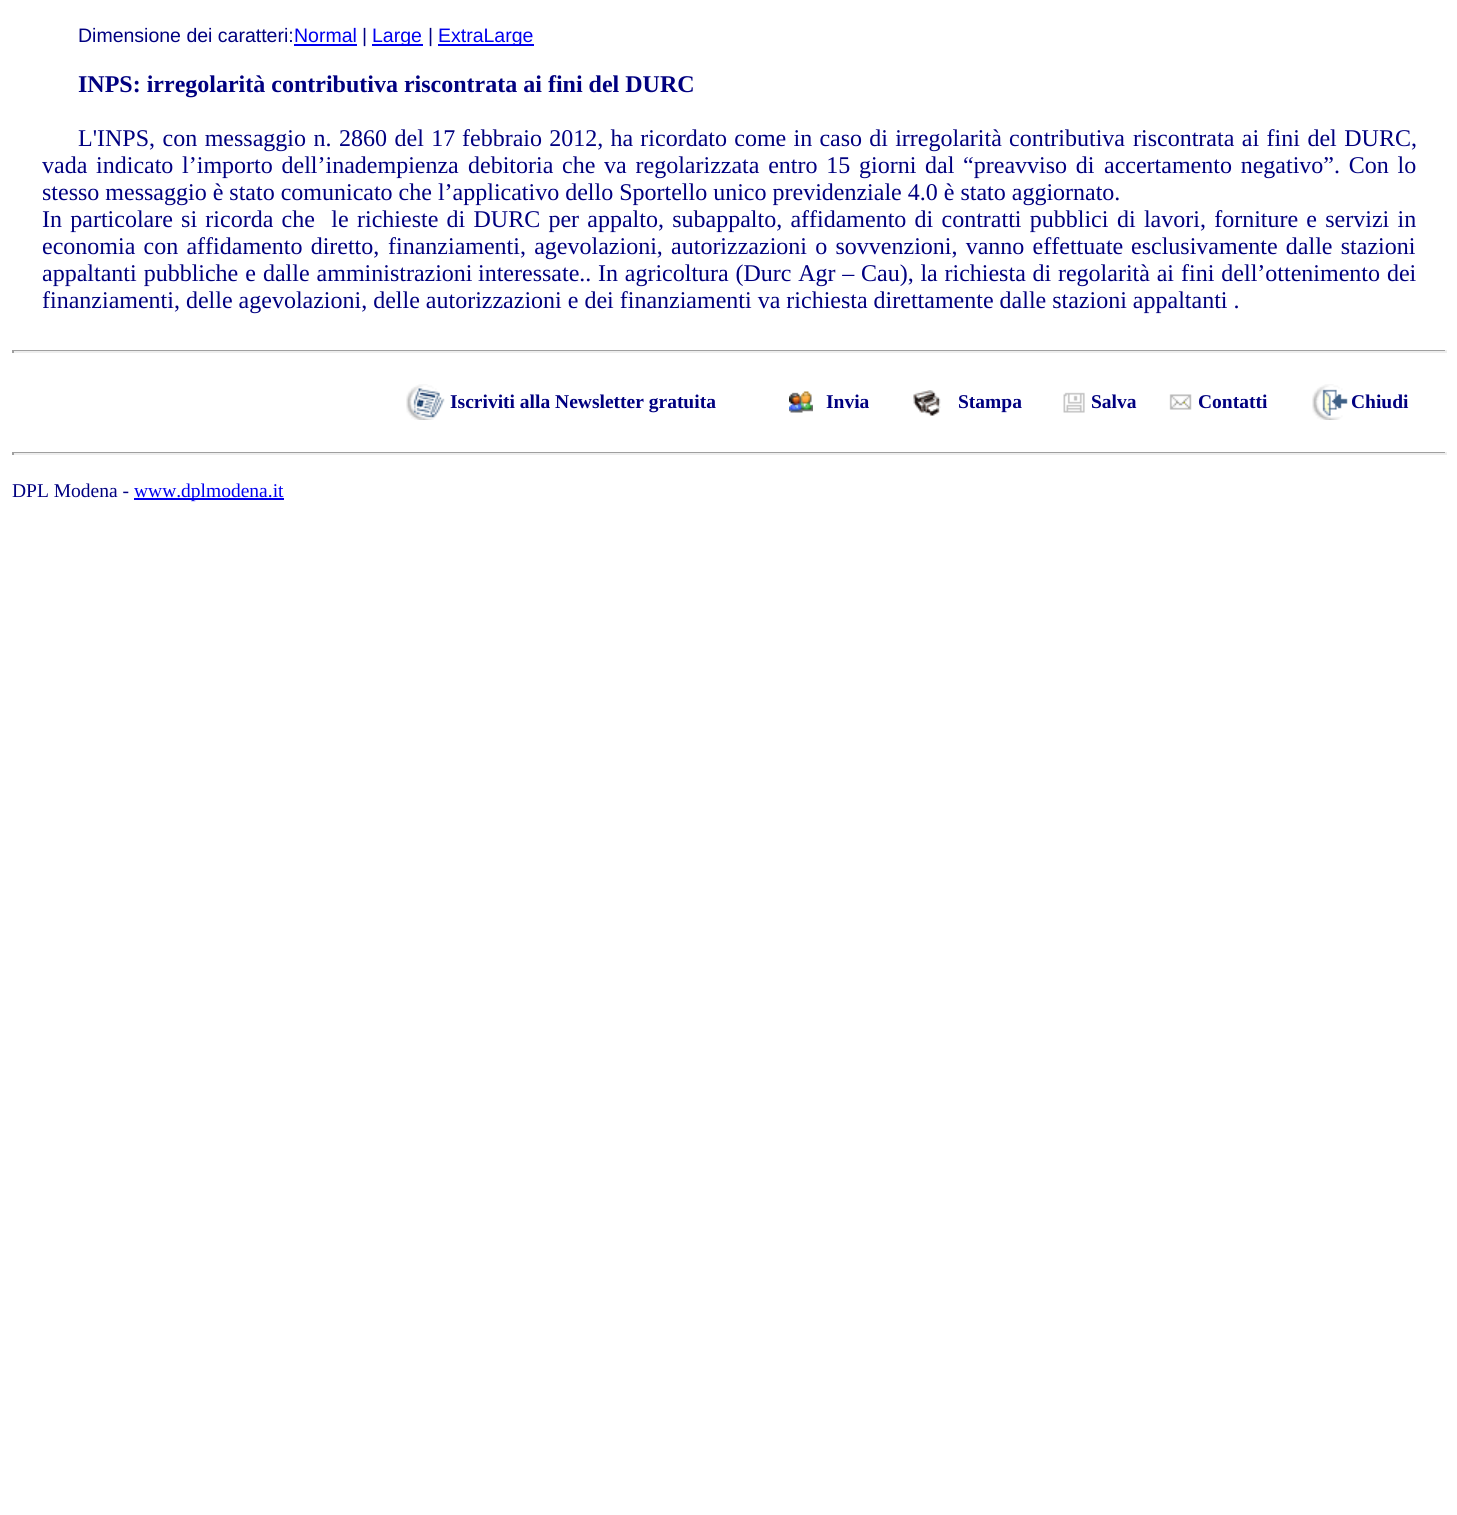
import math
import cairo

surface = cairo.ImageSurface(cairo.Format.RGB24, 1457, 1515)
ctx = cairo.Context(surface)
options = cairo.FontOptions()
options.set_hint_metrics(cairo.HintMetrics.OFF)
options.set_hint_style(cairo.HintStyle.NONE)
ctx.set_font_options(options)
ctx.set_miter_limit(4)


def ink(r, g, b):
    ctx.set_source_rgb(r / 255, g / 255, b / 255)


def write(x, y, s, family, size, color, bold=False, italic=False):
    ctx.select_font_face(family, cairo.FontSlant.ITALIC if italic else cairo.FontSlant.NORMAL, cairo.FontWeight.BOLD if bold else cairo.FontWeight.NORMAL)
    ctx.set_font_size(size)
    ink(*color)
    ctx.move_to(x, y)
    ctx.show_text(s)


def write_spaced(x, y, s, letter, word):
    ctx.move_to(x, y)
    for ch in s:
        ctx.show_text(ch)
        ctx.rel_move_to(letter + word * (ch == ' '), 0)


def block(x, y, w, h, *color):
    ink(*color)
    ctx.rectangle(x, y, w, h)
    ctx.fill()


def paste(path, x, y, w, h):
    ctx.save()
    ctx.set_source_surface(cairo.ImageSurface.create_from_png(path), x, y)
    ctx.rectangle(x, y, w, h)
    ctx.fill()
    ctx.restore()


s1 = dict(family="Liberation Sans", size=19.5, color=(0, 0, 128))
s2 = dict(family="Liberation Sans", size=19.5, color=(0, 0, 238))
s3 = dict(family="Liberation Serif", size=24, color=(0, 0, 128), bold=True)
s4 = dict(family="Liberation Serif", size=24, color=(0, 0, 128))
s5 = dict(family="Liberation Serif", size=19.5, color=(0, 0, 128), bold=True)
s6 = dict(family="Liberation Serif", size=19.5, color=(0, 0, 128))
s7 = dict(family="Liberation Serif", size=19.5, color=(0, 0, 238))

ink(255, 255, 255)
ctx.paint()
write(78, 42, "Dimensione dei caratteri:", **s1)
write(294, 42, "Normal", **s2)
block(294, 44, 63, 2, 0, 0, 238)
write(362, 42, "|", **s1)
block(372, 44, 51, 2, 0, 0, 238)
write(372, 42, "Large", **s2)
write(428, 42, "|", **s1)
block(438, 44, 96, 2, 0, 0, 238)
write(438, 42, "ExtraLarge", **s2)
write(78, 92, "INPS: irregolarità contributiva riscontrata ai fini del DURC", **s3)
ctx.select_font_face("Liberation Serif")
write_spaced(78, 146, "L'INPS, con messaggio n. 2860 del 17", 0, 1.5)
write_spaced(462, 146, "febbraio 2012, ha ricordato come in caso di irregolarità contributiva", 0, 1.25)
write_spaced(1133, 146, "riscontrata ai fini del DURC,", 0, 1.5)
write_spaced(42, 173, "vada indicato l’importo dell’inadempienza", 0, 2.75)
write_spaced(468, 173, "debitoria che va regolarizzata entro 15 giorni dal “preavviso di", 0, 2.75)
write_spaced(1104, 173, "accertamento negativo”. Con lo", 0, 2.75)
write(42, 200, "stesso messaggio è stato comunicato che l’applicativo dello Sportello unico previdenziale 4.0 è stato aggiornato.", **s4)
write_spaced(42, 227, "In particolare si ricorda che  le", 0, 2.25)
write_spaced(357, 227, "richieste di DURC per appalto, subappalto, affidamento di contratti pubblici", 0, 2.25)
write_spaced(1117, 227, "di lavori, forniture e servizi in", 0, 2.25)
write_spaced(42, 254, "economia con affidamento diretto,", 0, 2.25)
write_spaced(388, 254, "finanziamenti, agevolazioni, autorizzazioni o sovvenzioni, vanno effettuate", 0, 2.25)
write_spaced(1131, 254, "esclusivamente dalle stazioni", 0, 2.25)
write_spaced(42, 281, "appaltanti pubbliche e dalle amministrazioni", 0, 1)
write_spaced(478, 281, "interessate.. In agricoltura (Durc Agr – Cau), la richiesta di regolarità ai", 0, 0.75)
write_spaced(1181, 281, "fini dell’ottenimento dei", 0, 1)
write(42, 308, "finanziamenti, delle agevolazioni, delle autorizzazioni e dei finanziamenti va richiesta direttamente dalle stazioni appaltanti .", **s4)
block(12, 350, 1434, 1, 159, 159, 159)
block(1445, 350, 2, 3, 238, 238, 238)
block(12, 351, 1434, 2, 238, 238, 238)
block(12, 350, 2, 3, 159, 159, 159)
paste("pic1.png", 406, 384, 39, 36)
write(450, 408, "Iscriviti alla Newsletter gratuita", **s5)
paste("pic2.png", 789, 391, 24, 22)
write(826, 408, "Invia", **s5)
paste("pic3.png", 913, 390, 28, 26)
write(958, 408, "Stampa", **s5)
paste("pic4.png", 1063, 392, 22, 21)
write(1091, 408, "Salva", **s5)
paste("pic5.png", 1169, 394, 23, 16)
write(1198, 408, "Contatti", **s5)
paste("pic6.png", 1312, 384, 36, 36)
write(1351, 408, "Chiudi", **s5)
block(12, 452, 1434, 1, 159, 159, 159)
block(1445, 452, 2, 3, 238, 238, 238)
block(12, 453, 1434, 2, 238, 238, 238)
block(12, 452, 2, 3, 159, 159, 159)
write(12, 497, "DPL Modena -", **s6)
block(134, 498, 150, 2, 0, 0, 238)
write(134, 497, "www.dplmodena.it", **s7)
surface.write_to_png("screenshot.png")
